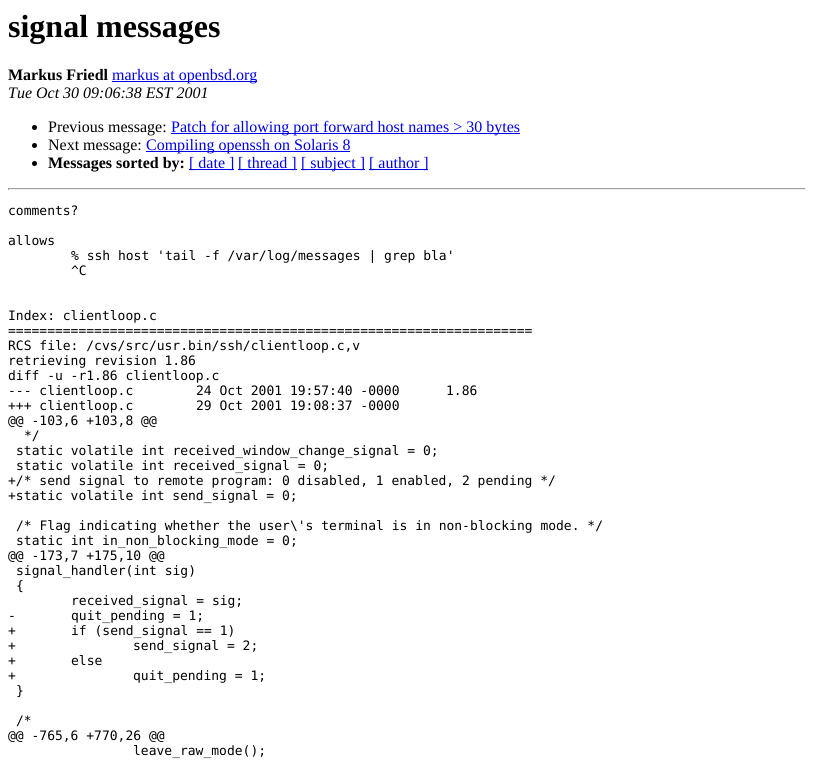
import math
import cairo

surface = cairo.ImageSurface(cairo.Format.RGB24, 814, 761)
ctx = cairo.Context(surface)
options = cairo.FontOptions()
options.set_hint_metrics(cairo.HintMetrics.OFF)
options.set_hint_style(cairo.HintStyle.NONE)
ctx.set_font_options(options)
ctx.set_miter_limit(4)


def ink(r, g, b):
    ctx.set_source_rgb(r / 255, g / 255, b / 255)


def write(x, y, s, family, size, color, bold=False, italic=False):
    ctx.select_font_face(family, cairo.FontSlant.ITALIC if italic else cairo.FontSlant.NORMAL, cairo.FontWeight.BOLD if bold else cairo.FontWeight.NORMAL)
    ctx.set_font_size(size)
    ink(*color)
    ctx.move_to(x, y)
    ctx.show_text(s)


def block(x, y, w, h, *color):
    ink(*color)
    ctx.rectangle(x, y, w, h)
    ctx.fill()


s1 = dict(family="Liberation Serif", size=32, color=(0, 0, 0), bold=True)
s2 = dict(family="Liberation Serif", size=16, color=(0, 0, 0), bold=True)
s3 = dict(family="Liberation Serif", size=16, color=(0, 0, 238))
s4 = dict(family="Liberation Serif", size=16, color=(0, 0, 0), italic=True)
s5 = dict(family="Liberation Serif", size=16, color=(0, 0, 0))
s6 = dict(family="DejaVu Sans Mono", size=13, color=(0, 0, 0))

ink(255, 255, 255)
ctx.paint()
write(8, 37, "signal messages", **s1)
write(8, 80, "Markus Friedl", **s2)
block(112, 81, 145, 1, 0, 0, 238)
write(112, 80, "markus at openbsd.org", **s3)
write(8, 98, "Tue Oct 30 09:06:38 EST 2001", **s4)
ctx.new_path()
ctx.arc(34.5, 127.5, 2.5, 0, 2 * math.pi)
ctx.fill()
write(48, 132, "Previous message:", **s5)
block(171, 133, 349, 1, 0, 0, 238)
write(171, 132, "Patch for allowing port forward host names > 30 bytes", **s3)
ink(0, 0, 0)
ctx.new_path()
ctx.arc(34.5, 145.5, 2.5, 0, 2 * math.pi)
ctx.fill()
write(48, 150, "Next message:", **s5)
block(146, 151, 204, 1, 0, 0, 238)
write(146, 150, "Compiling openssh on Solaris 8", **s3)
ink(0, 0, 0)
ctx.new_path()
ctx.arc(34.5, 163.5, 2.5, 0, 2 * math.pi)
ctx.fill()
write(48, 168, "Messages sorted by:", **s2)
block(189, 169, 45, 1, 0, 0, 238)
write(189, 168, "[ date ]", **s3)
block(238, 169, 59, 1, 0, 0, 238)
write(238, 168, "[ thread ]", **s3)
block(301, 169, 64, 1, 0, 0, 238)
write(301, 168, "[ subject ]", **s3)
block(369, 169, 59, 1, 0, 0, 238)
write(369, 168, "[ author ]", **s3)
block(8, 188, 798, 1, 159, 159, 159)
block(805, 188, 1, 2, 238, 238, 238)
block(8, 189, 798, 1, 238, 238, 238)
block(8, 188, 1, 2, 159, 159, 159)
write(8, 215, "comments?", **s6)
write(8, 245, "allows", **s6)
write(71, 260, "% ssh host 'tail -f /var/log/messages | grep bla'", **s6)
write(71, 275, "^C", **s6)
write(8, 320, "Index: clientloop.c", **s6)
write(8, 335, "===================================================================", **s6)
write(8, 350, "RCS file: /cvs/src/usr.bin/ssh/clientloop.c,v", **s6)
write(8, 365, "retrieving revision 1.86", **s6)
write(8, 380, "diff -u -r1.86 clientloop.c", **s6)
write(8, 395, "--- clientloop.c", **s6)
write(196, 395, "24 Oct 2001 19:57:40 -0000", **s6)
write(446, 395, "1.86", **s6)
write(8, 410, "+++ clientloop.c", **s6)
write(196, 410, "29 Oct 2001 19:08:37 -0000", **s6)
write(8, 425, "@@ -103,6 +103,8 @@", **s6)
write(24, 440, "*/", **s6)
write(16, 455, "static volatile int received_window_change_signal = 0;", **s6)
write(16, 470, "static volatile int received_signal = 0;", **s6)
write(8, 485, "+/* send signal to remote program: 0 disabled, 1 enabled, 2 pending */", **s6)
write(8, 500, "+static volatile int send_signal = 0;", **s6)
write(16, 530, "/* Flag indicating whether the user\\'s terminal is in non-blocking mode. */", **s6)
write(16, 545, "static int in_non_blocking_mode = 0;", **s6)
write(8, 560, "@@ -173,7 +175,10 @@", **s6)
write(16, 575, "signal_handler(int sig)", **s6)
write(16, 590, "{", **s6)
write(71, 605, "received_signal = sig;", **s6)
write(8, 620, "-", **s6)
write(71, 620, "quit_pending = 1;", **s6)
write(8, 635, "+", **s6)
write(71, 635, "if (send_signal == 1)", **s6)
write(8, 650, "+", **s6)
write(133, 650, "send_signal = 2;", **s6)
write(8, 665, "+", **s6)
write(71, 665, "else", **s6)
write(8, 680, "+", **s6)
write(133, 680, "quit_pending = 1;", **s6)
write(16, 695, "}", **s6)
write(16, 725, "/*", **s6)
write(8, 740, "@@ -765,6 +770,26 @@", **s6)
write(133, 755, "leave_raw_mode();", **s6)
surface.write_to_png("screenshot.png")
